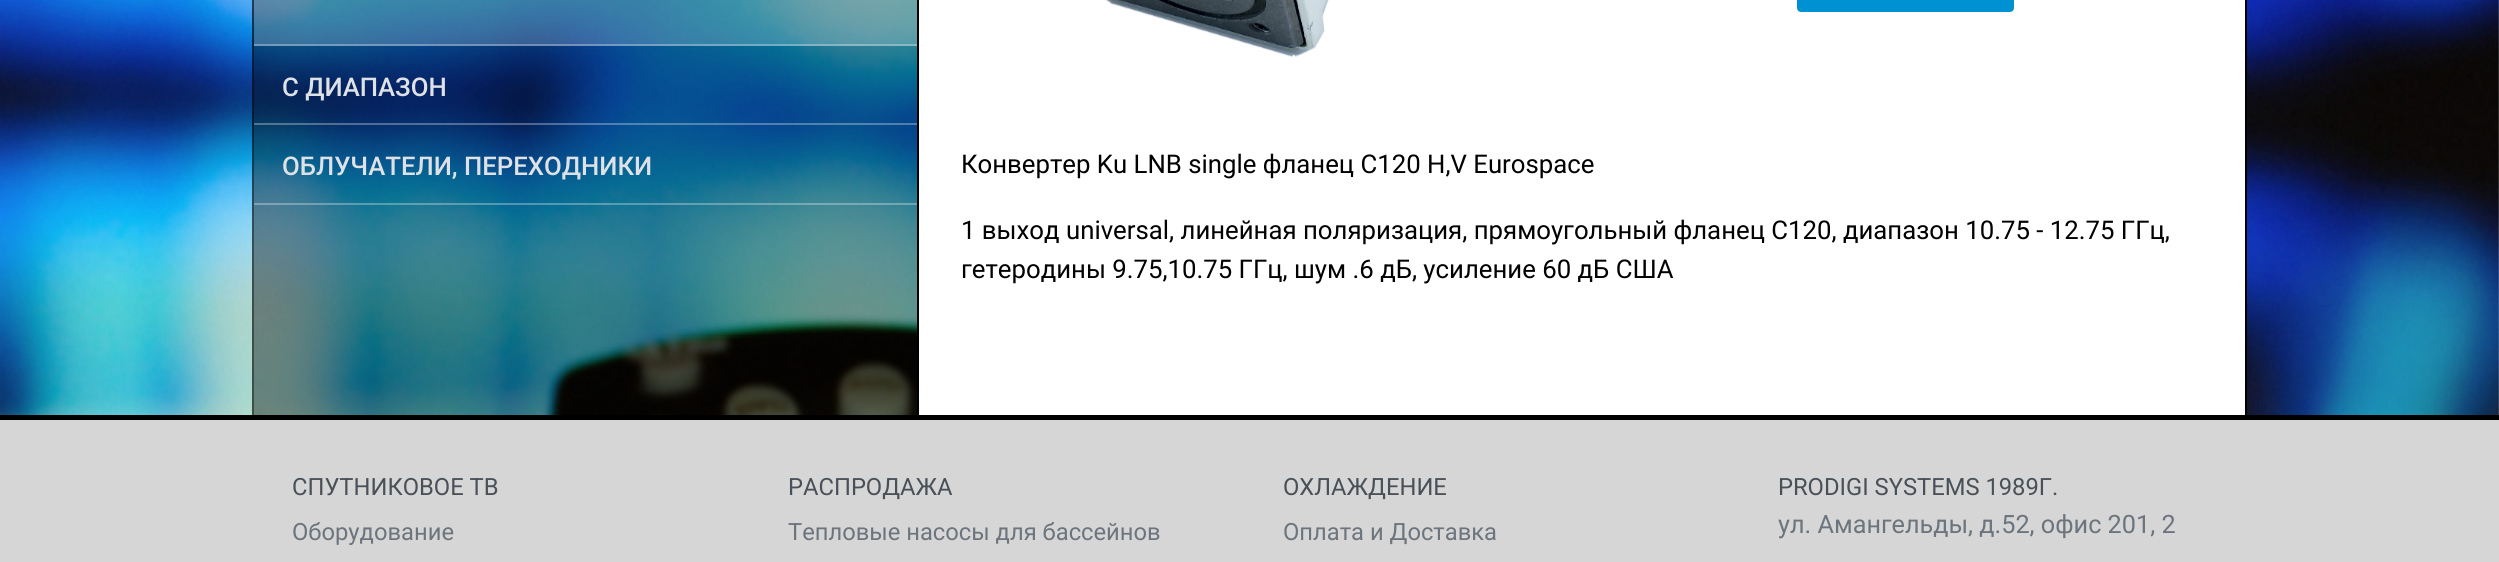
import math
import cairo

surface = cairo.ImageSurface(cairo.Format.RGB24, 2499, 562)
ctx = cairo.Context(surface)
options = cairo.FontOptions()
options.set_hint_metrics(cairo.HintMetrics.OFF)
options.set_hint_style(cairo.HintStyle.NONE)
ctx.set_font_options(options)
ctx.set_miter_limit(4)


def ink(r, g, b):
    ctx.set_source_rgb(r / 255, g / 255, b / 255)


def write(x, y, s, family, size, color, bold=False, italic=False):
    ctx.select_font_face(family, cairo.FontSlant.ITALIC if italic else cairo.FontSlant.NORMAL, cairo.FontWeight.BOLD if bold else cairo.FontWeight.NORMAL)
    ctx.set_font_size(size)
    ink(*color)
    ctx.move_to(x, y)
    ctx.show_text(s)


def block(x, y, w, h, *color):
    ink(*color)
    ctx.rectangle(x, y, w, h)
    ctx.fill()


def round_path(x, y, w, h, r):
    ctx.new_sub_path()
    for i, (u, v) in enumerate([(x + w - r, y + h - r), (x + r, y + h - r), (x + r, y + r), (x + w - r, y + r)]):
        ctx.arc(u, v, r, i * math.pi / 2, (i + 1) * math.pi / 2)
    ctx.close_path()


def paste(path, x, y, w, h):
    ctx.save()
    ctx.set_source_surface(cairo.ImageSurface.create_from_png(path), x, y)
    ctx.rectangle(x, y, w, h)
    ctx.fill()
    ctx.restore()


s1 = dict(family="Roboto Medium", size=25.75, color=(222, 226, 230))
s2 = dict(family="Roboto", size=25.75, color=(0, 0, 0))
s3 = dict(family="Roboto", size=23.75, color=(73, 80, 87))
s4 = dict(family="Roboto", size=23.75, color=(108, 117, 125))
s5 = dict(family="Roboto", size=25.25, color=(108, 117, 125))

ink(255, 255, 255)
ctx.paint()
paste("pic1.png", 0, 0, 2499, 415)
ctx.set_source_rgba(0, 0, 0, 0.4)
ctx.rectangle(252, 0, 665, 415)
ctx.fill()
ctx.rectangle(252, 0, 2, 415)
ctx.fill()
ctx.set_source_rgba(1, 1, 1, 0.2)
ctx.rectangle(254, 0, 663, 46)
ctx.fill()
ctx.set_source_rgba(1, 1, 1, 0.3)
ctx.rectangle(254, 44, 663, 2)
ctx.fill()
ctx.rectangle(254, 123, 663, 2)
ctx.fill()
write(282, 96, "C ДИАПАЗОН", **s1)
ctx.set_source_rgba(1, 1, 1, 0.3)
ctx.rectangle(254, 203, 663, 2)
ctx.fill()
write(282, 175, "ОБЛУЧАТЕЛИ, ПЕРЕХОДНИКИ", **s1)
block(919, 0, 1326, 415, 255, 255, 255)
block(2245, 0, 2, 415, 0, 0, 0)
block(917, 0, 2, 415, 0, 0, 0)
paste("pic2.png", 1106, 0, 223, 57)
ink(0, 145, 210)
round_path(1798, -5, 215, 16, 3)
ctx.fill_preserve()
ctx.stroke()
write(961, 173, "Конвертер Ku LNB single фланец С120 H,V Eurospace", **s2)
write(961, 239, "1 выход universal, линейная поляризация, прямоугольный фланец C120, диапазон 10.75 - 12.75 ГГц,", **s2)
write(961, 278, "гетеродины 9.75,10.75 ГГц, шум .6 дБ, усиление 60 дБ США", **s2)
block(0, 420, 2499, 142, 214, 214, 214)
block(0, 415, 2499, 5, 0, 0, 0)
write(292, 495, "СПУТНИКОВОЕ ТВ", **s3)
write(292, 540, "Оборудование", **s4)
write(788, 495, "РАСПРОДАЖА", **s3)
write(788, 540, "Тепловые насосы для бассейнов", **s4)
write(1283, 495, "ОХЛАЖДЕНИЕ", **s3)
write(1283, 540, "Оплата и Доставка", **s4)
write(1778, 495, "PRODIGI SYSTEMS 1989Г.", **s3)
write(1778, 533, "ул. Амангельды, д.52, офис 201, 2", **s5)
surface.write_to_png("screenshot.png")
